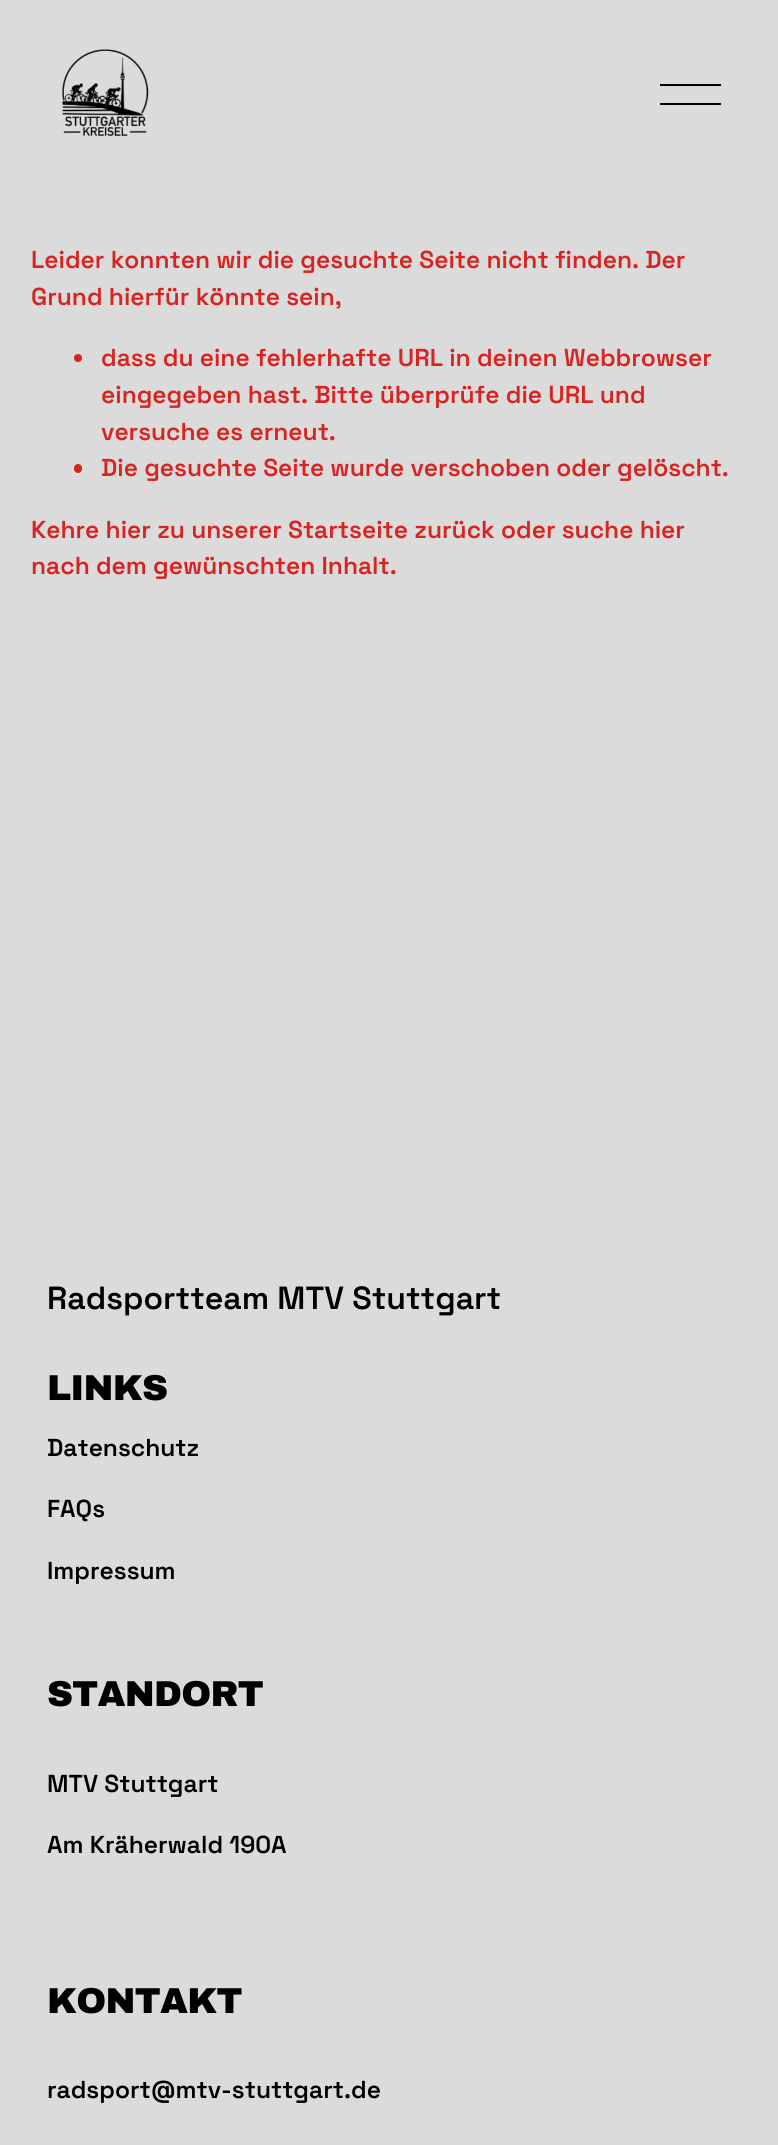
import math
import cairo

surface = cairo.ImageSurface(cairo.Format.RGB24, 778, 2145)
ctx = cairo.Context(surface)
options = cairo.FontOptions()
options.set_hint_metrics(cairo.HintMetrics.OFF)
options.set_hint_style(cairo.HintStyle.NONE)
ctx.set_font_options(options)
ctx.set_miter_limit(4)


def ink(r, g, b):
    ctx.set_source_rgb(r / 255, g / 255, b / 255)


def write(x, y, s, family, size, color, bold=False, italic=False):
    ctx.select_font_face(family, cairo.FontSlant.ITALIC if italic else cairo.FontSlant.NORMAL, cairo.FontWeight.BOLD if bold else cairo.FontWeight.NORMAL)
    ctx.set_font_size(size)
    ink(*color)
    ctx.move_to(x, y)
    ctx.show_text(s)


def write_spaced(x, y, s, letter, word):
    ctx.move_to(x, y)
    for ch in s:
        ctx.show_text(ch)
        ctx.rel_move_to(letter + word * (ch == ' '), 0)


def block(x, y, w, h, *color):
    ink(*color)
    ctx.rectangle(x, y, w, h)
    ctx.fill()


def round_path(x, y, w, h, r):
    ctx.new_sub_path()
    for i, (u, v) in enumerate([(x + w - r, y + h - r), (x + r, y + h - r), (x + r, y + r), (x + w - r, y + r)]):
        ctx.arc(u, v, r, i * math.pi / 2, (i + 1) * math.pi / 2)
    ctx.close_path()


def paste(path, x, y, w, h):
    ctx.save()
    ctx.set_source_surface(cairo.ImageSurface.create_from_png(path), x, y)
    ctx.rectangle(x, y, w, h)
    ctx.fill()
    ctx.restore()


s1 = dict(family="Space Grotesk SemiBold", size=24.5, color=(217, 35, 33))
s2 = dict(family="Space Grotesk SemiBold", size=32, color=(0, 0, 0))
s3 = dict(family="Space Grotesk SemiBold", size=24.5, color=(0, 0, 0))

ink(219, 219, 219)
ctx.paint()
paste("pic1.png", 61, 49, 88, 88)
block(660, 84, 61, 2, 0, 0, 0)
block(660, 103, 61, 2, 0, 0, 0)
write(31, 268, "Leider konnten wir die gesuchte Seite nicht finden. Der", **s1)
write(31, 305, "Grund hierfür könnte sein,", **s1)
ctx.new_path()
ctx.arc(78, 358, 4, 0, 2 * math.pi)
ctx.fill()
write(101, 366, "dass du eine fehlerhafte URL in deinen Webbrowser", **s1)
write(101, 403, "eingegeben hast. Bitte überprüfe die URL und", **s1)
write(101, 440, "versuche es erneut.", **s1)
round_path(74, 464, 8, 9, 4)
ctx.fill()
write(101, 476, "Die gesuchte Seite wurde verschoben oder gelöscht.", **s1)
write(31, 538, "Kehre hier zu unserer Startseite zurück oder suche hier", **s1)
write(31, 574, "nach dem gewünschten Inhalt.", **s1)
write(47, 1309, "Radsportteam MTV Stuttgart", **s2)
ctx.select_font_face("Archivo Black Black")
ctx.set_font_size(36)
write_spaced(47, 1400, "LINKS", -0.75, 0)
write(47, 1456, "Datenschutz", **s3)
write(47, 1517, "FAQs", **s3)
write(47, 1579, "Impressum", **s3)
ctx.select_font_face("Archivo Black Black")
ctx.set_font_size(36)
write_spaced(47, 1706, "STANDORT", -0.75, 0)
write(47, 1792, "MTV Stuttgart", **s3)
write(47, 1853, "Am Kräherwald 190A", **s3)
ctx.select_font_face("Archivo Black Black")
ctx.set_font_size(36)
write_spaced(47, 2013, "KONTAKT", -0.75, 0)
write(47, 2098, "radsport@mtv-stuttgart.de", **s3)
surface.write_to_png("screenshot.png")
